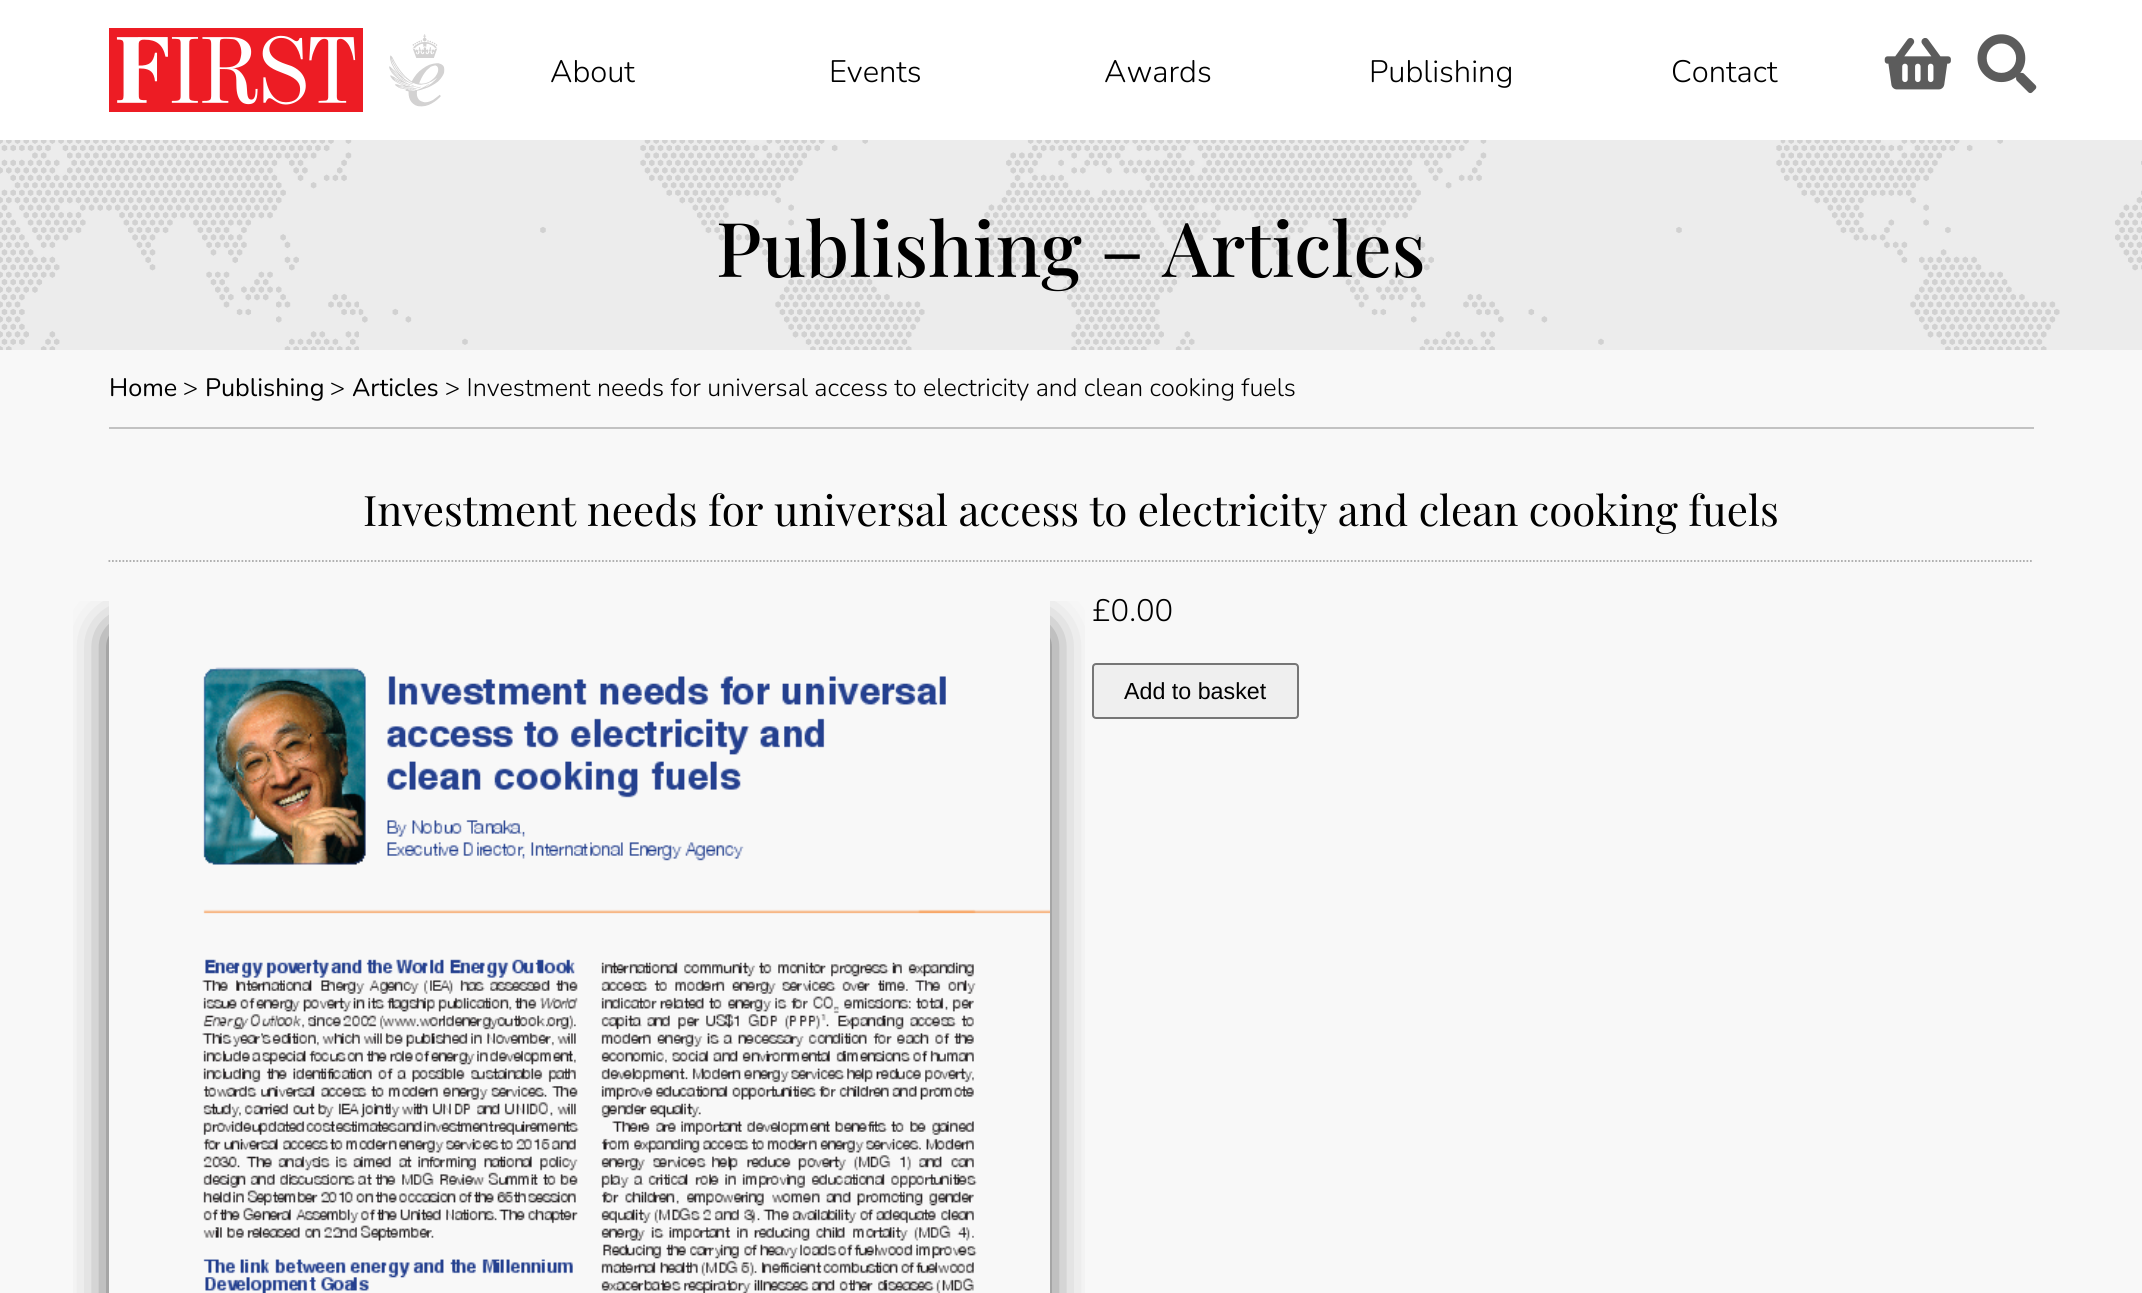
import math
import cairo

surface = cairo.ImageSurface(cairo.Format.RGB24, 2142, 1293)
ctx = cairo.Context(surface)
options = cairo.FontOptions()
options.set_hint_metrics(cairo.HintMetrics.OFF)
options.set_hint_style(cairo.HintStyle.NONE)
ctx.set_font_options(options)
ctx.set_miter_limit(4)


def ink(r, g, b):
    ctx.set_source_rgb(r / 255, g / 255, b / 255)


def write(x, y, s, family, size, color, bold=False, italic=False):
    ctx.select_font_face(family, cairo.FontSlant.ITALIC if italic else cairo.FontSlant.NORMAL, cairo.FontWeight.BOLD if bold else cairo.FontWeight.NORMAL)
    ctx.set_font_size(size)
    ink(*color)
    ctx.move_to(x, y)
    ctx.show_text(s)


def block(x, y, w, h, *color):
    ink(*color)
    ctx.rectangle(x, y, w, h)
    ctx.fill()


def round_path(x, y, w, h, r):
    ctx.new_sub_path()
    for i, (u, v) in enumerate([(x + w - r, y + h - r), (x + r, y + h - r), (x + r, y + r), (x + w - r, y + r)]):
        ctx.arc(u, v, r, i * math.pi / 2, (i + 1) * math.pi / 2)
    ctx.close_path()


def blur_box(x, y, w, h, r, blur, alpha):
    ctx.push_group_with_content(cairo.Content.ALPHA)
    ctx.set_operator(cairo.Operator.SOURCE)
    for i in range(15, -16, -2):
        e = blur * i / 6
        if min(w, h) + 2 * e > 0:
            ctx.set_source_rgba(0, 0, 0, alpha * math.erfc((i - 1) / 8.5) / 2)
            round_path(x - e, y - e, w + 2 * e, h + 2 * e, max(0, min(r + e + blur * .6, min(w, h) / 2 + e)))
            ctx.fill()
    ctx.mask(ctx.pop_group())


def paste(path, x, y, w, h):
    ctx.save()
    ctx.set_source_surface(cairo.ImageSurface.create_from_png(path), x, y)
    ctx.rectangle(x, y, w, h)
    ctx.fill()
    ctx.restore()


s1 = dict(family="Nunito Light", size=31, color=(0, 0, 0))
s2 = dict(family="Playfair Display Medium", size=75.5, color=(0, 0, 0))
s3 = dict(family="Nunito", size=25.2, color=(0, 0, 0))
s4 = dict(family="Nunito Light", size=25.2, color=(0, 0, 0))
s5 = dict(family="Playfair Display", size=42, color=(0, 0, 0))
s6 = dict(family="Liberation Sans", size=23.25, color=(0, 0, 0))

ink(255, 255, 255)
ctx.paint()
paste("pic1.png", 109, 28, 254, 84)
paste("pic2.png", 389, 34, 56, 73)
write(550, 82, "About", **s1)
write(829, 82, "Events", **s1)
write(1104, 82, "Awards", **s1)
write(1369, 82, "Publishing", **s1)
write(1671, 82, "Contact", **s1)
paste("pic3.png", 1884, 38, 67, 52)
paste("pic4.png", 1977, 34, 60, 60)
block(0, 140, 2142, 210, 236, 236, 236)
paste("pic5.png", 0, 140, 2142, 210)
write(716, 277, "Publishing – Articles", **s2)
block(0, 350, 2142, 943, 248, 248, 248)
block(109, 427, 1925, 2, 194, 194, 194)
write(109, 396, "Home", **s3)
write(183, 396, ">", **s4)
write(205, 396, "Publishing", **s3)
write(330, 396, ">", **s4)
write(352, 396, "Articles", **s3)
write(445, 396, "> Investment needs for universal access to electricity and clean cooking fuels", **s4)
write(363, 526, "Investment needs for universal access to electricity and clean cooking fuels", **s5)
ctx.new_path()
ctx.move_to(108.5, 561)
ctx.line_to(2033.5, 561)
ink(170, 170, 170)
ctx.set_line_width(1.8)
ctx.set_dash([1.75, 1.75])
ctx.stroke()
ctx.save()
ctx.rectangle(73, 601, 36, 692)
ctx.clip()
ink(0, 0, 0)
blur_box(117, 634, 854, 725, 0, 22, 0.9)
ctx.restore()
ink(239, 239, 239)
round_path(1093, 664, 205, 54, 3)
ctx.fill_preserve()
ink(118, 118, 118)
ctx.set_line_width(2)
ctx.set_dash([])
ctx.stroke()
ctx.save()
ctx.rectangle(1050, 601, 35, 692)
ctx.clip()
ink(0, 0, 0)
blur_box(187, 634, 854, 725, 0, 22, 0.9)
ctx.restore()
paste("pic6.png", 202, 667, 848, 626)
write(1092, 621, "£0.00", **s1)
write(1124, 699, "Add to basket", **s6)
surface.write_to_png("screenshot.png")
